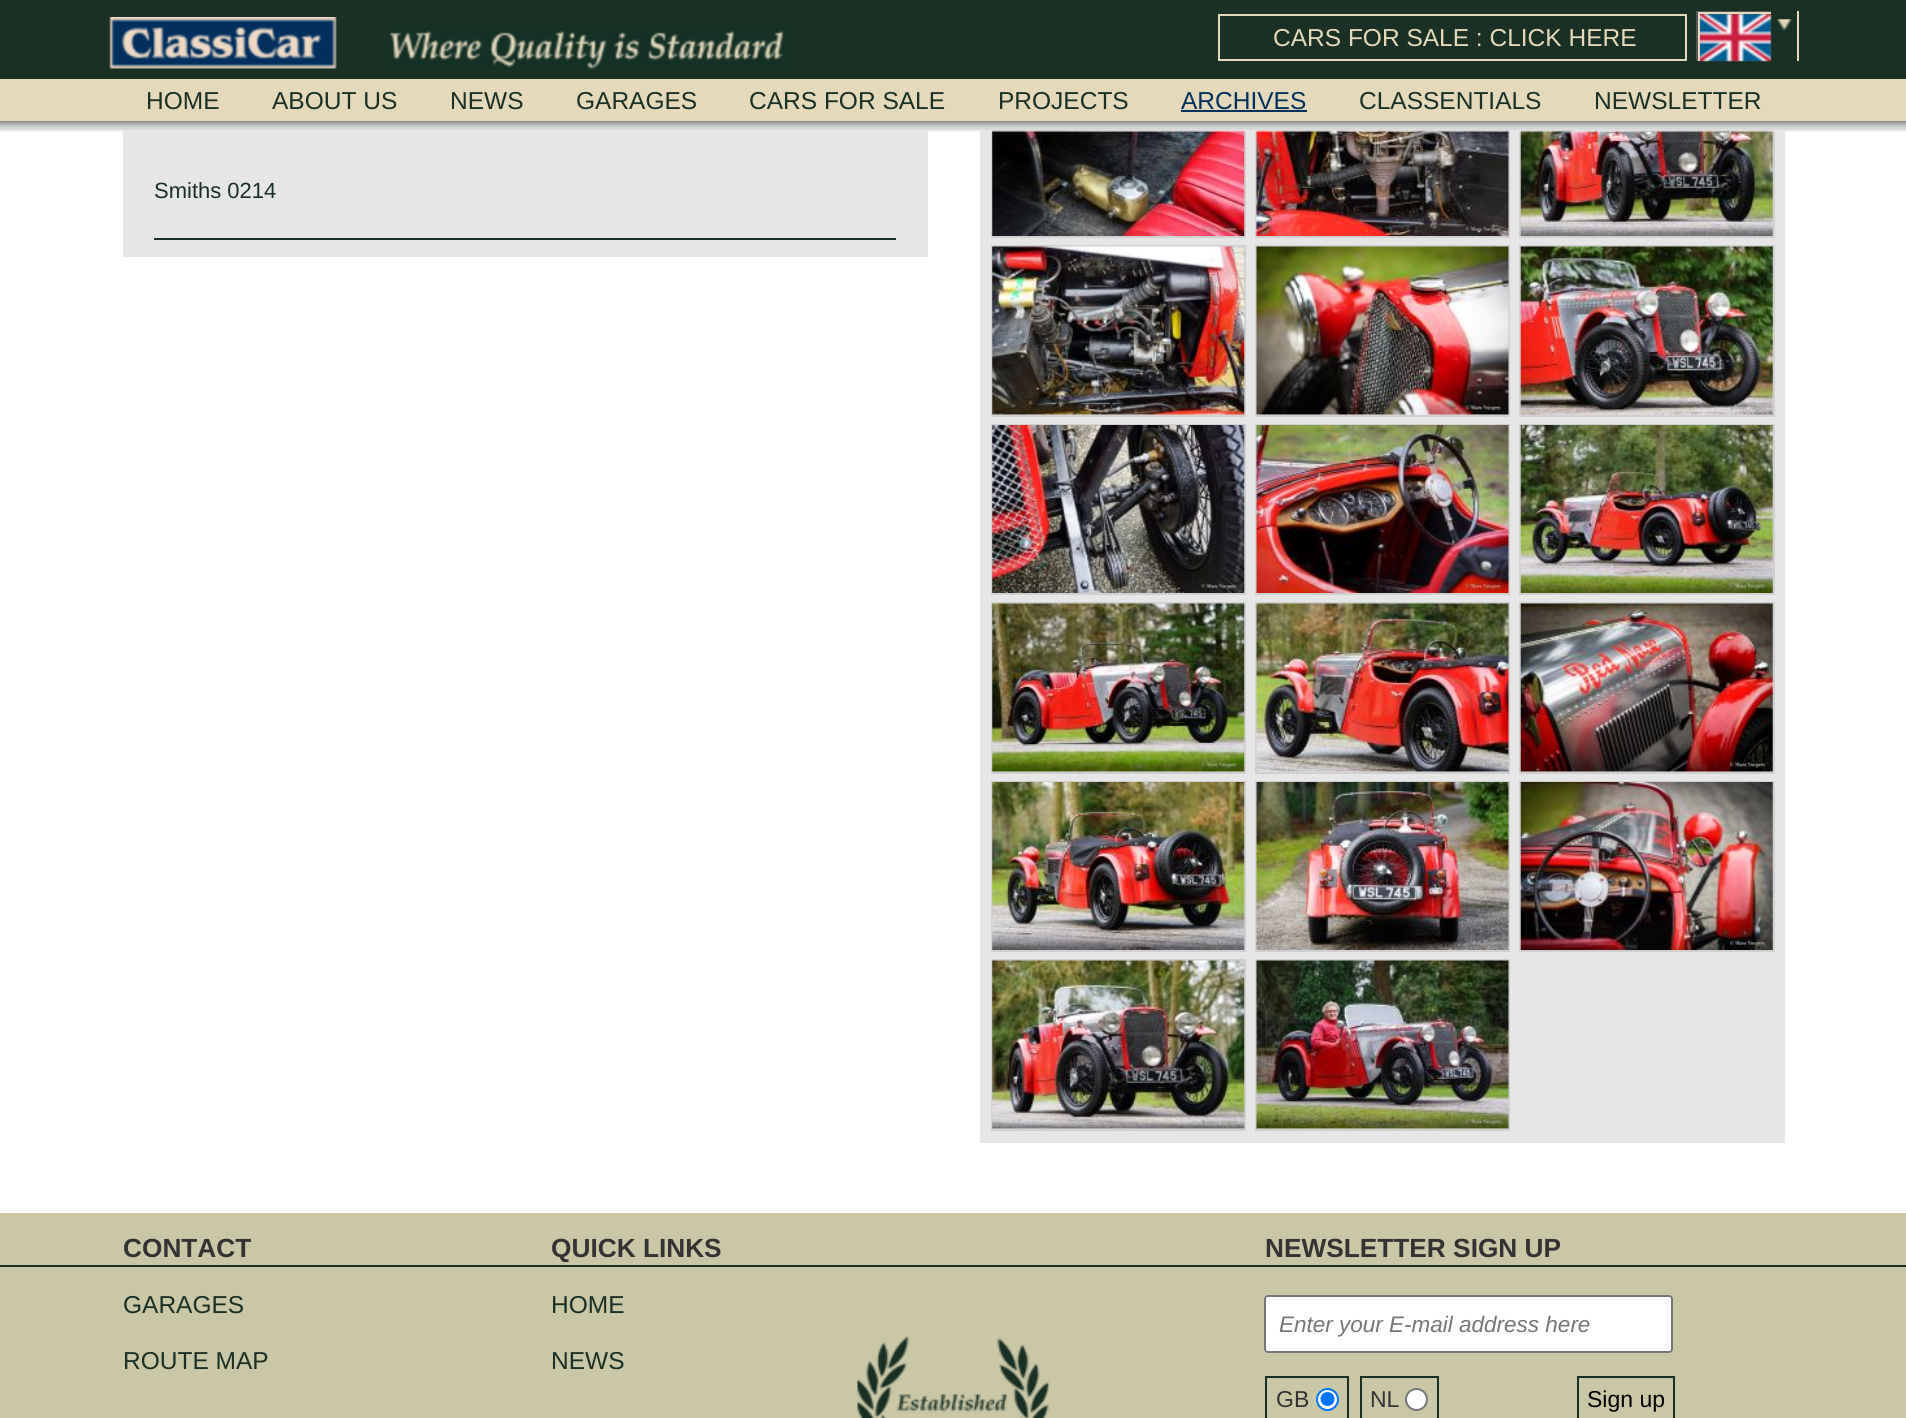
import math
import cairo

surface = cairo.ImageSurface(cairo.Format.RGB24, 1906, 1418)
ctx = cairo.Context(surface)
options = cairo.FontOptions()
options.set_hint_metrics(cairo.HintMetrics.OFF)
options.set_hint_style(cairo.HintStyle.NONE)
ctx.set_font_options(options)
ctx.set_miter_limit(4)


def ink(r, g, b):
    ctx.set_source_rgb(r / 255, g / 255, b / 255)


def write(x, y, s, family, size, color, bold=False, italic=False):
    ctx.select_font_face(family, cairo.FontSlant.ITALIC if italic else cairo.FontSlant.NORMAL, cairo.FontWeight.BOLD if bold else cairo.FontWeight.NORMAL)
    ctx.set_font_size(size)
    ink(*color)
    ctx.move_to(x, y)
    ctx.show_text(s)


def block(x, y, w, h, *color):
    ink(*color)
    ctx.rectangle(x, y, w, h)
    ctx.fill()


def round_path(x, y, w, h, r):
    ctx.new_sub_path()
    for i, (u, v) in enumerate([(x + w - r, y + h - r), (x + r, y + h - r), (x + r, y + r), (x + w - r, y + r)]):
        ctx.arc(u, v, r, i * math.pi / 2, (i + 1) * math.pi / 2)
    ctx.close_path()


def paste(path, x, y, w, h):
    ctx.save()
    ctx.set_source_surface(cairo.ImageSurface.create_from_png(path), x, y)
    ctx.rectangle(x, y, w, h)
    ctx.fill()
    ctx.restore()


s1 = dict(family="Liberation Sans", size=24.5, color=(229, 217, 187))
s2 = dict(family="Liberation Sans", size=24.5, color=(26, 48, 36))
s3 = dict(family="Liberation Sans", size=24.5, color=(0, 48, 92))
s4 = dict(family="Liberation Sans", size=22, color=(26, 48, 36))
s5 = dict(family="Liberation Sans", size=26.25, color=(51, 51, 51), bold=True)
s6 = dict(family="Liberation Sans", size=22.5, color=(117, 117, 117), italic=True)
s7 = dict(family="Liberation Sans", size=23, color=(51, 51, 51))
s8 = dict(family="Liberation Sans", size=23, color=(0, 0, 0))

ink(255, 255, 255)
ctx.paint()
block(980, 130, 805, 1013, 230, 230, 230)
ctx.rectangle(992, 68, 253, 169)
ink(208, 208, 208)
ctx.stroke()
ctx.rectangle(1256, 68, 253, 169)
ctx.stroke()
ctx.rectangle(1520, 68, 254, 169)
ctx.stroke()
block(0, 0, 1906, 79, 26, 48, 36)
paste("pic1.png", 109, 17, 228, 52)
paste("pic2.png", 387, 27, 404, 43)
ctx.rectangle(1219, 15, 467, 45)
ink(229, 217, 187)
ctx.stroke()
write(1273, 46, "CARS FOR SALE : CLICK HERE", **s1)
block(1696, 11, 75, 50, 85, 85, 85)
paste("pic3.png", 1698, 13, 74, 49)
ctx.save()
ctx.rectangle(1696, 11, 75, 50)
ctx.clip()
ctx.rectangle(1699, 13, 73, 49)
ink(229, 217, 187)
ctx.stroke()
ctx.restore()
block(1797, 11, 2, 50, 229, 217, 187)
paste("pic4.png", 1777, 19, 15, 12)
block(0, 79, 1906, 42, 229, 217, 187)
write(146, 109, "HOME", **s2)
write(272, 109, "ABOUT US", **s2)
write(450, 109, "NEWS", **s2)
write(576, 109, "GARAGES", **s2)
write(749, 109, "CARS FOR SALE", **s2)
write(998, 109, "PROJECTS", **s2)
write(1181, 109, "ARCHIVES", **s3)
block(1181, 110, 126, 2, 0, 48, 92)
write(1359, 109, "CLASSENTIALS", **s2)
write(1594, 109, "NEWSLETTER", **s2)
block(123, 130, 805, 127, 230, 230, 230)
paste("pic6.png", 992, 130, 253, 106)
paste("pic7.png", 1256, 130, 253, 106)
paste("pic8.png", 1520, 130, 253, 106)
paste("pic5.png", 0, 121, 1906, 11)
write(154, 198, "Smiths 0214", **s4)
block(154, 238, 742, 2, 26, 48, 36)
ctx.rectangle(992, 246, 253, 170)
ink(208, 208, 208)
ctx.stroke()
paste("pic9.png", 992, 246, 253, 169)
ctx.rectangle(1256, 246, 253, 170)
ctx.stroke()
paste("pic10.png", 1256, 246, 253, 169)
ctx.rectangle(1520, 246, 254, 170)
ctx.stroke()
paste("pic11.png", 1520, 246, 253, 169)
ctx.rectangle(992, 425, 253, 169)
ctx.stroke()
paste("pic12.png", 992, 425, 253, 168)
ctx.rectangle(1256, 425, 253, 169)
ctx.stroke()
paste("pic13.png", 1256, 425, 253, 168)
ctx.rectangle(1520, 425, 254, 169)
ctx.stroke()
paste("pic14.png", 1520, 425, 253, 168)
ctx.rectangle(992, 603, 253, 170)
ctx.stroke()
paste("pic15.png", 992, 603, 253, 169)
ctx.rectangle(1256, 603, 253, 170)
ctx.stroke()
paste("pic16.png", 1256, 603, 253, 169)
ctx.rectangle(1520, 603, 254, 170)
ctx.stroke()
paste("pic17.png", 1520, 603, 253, 169)
ctx.rectangle(992, 782, 253, 169)
ctx.stroke()
paste("pic18.png", 992, 782, 253, 168)
ctx.rectangle(1256, 782, 253, 169)
ctx.stroke()
paste("pic19.png", 1256, 782, 253, 168)
ctx.rectangle(1520, 782, 254, 169)
ctx.stroke()
paste("pic20.png", 1520, 782, 253, 168)
ctx.rectangle(992, 960, 253, 170)
ctx.stroke()
paste("pic21.png", 992, 960, 253, 169)
ctx.rectangle(1256, 960, 253, 170)
ctx.stroke()
paste("pic22.png", 1256, 960, 253, 169)
block(0, 1213, 1906, 205, 201, 199, 166)
write(123, 1257, "CONTACT", **s5)
write(123, 1313, "GARAGES", **s2)
write(123, 1369, "ROUTE MAP", **s2)
write(551, 1257, "QUICK LINKS", **s5)
write(551, 1313, "HOME", **s2)
write(551, 1369, "NEWS", **s2)
paste("pic23.png", 857, 1336, 192, 82)
write(1265, 1257, "NEWSLETTER SIGN UP", **s5)
ink(255, 255, 255)
round_path(1265, 1296, 407, 56, 3)
ctx.fill_preserve()
ink(118, 118, 118)
ctx.stroke()
write(1279, 1332, "Enter your E-mail address here", **s6)
ctx.rectangle(1266, 1377, 82, 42)
ink(26, 48, 36)
ctx.stroke()
write(1276, 1407, "GB", **s7)
ink(255, 255, 255)
ctx.new_path()
ctx.arc(1327.5, 1399.5, 10.5, 0, 2 * math.pi)
ctx.fill_preserve()
ink(0, 117, 255)
ctx.stroke()
ctx.arc(1327.5, 1399, 7, 0, 2 * math.pi)
ctx.fill()
ctx.rectangle(1361, 1377, 77, 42)
ink(26, 48, 36)
ctx.stroke()
write(1370, 1407, "NL", **s7)
ink(255, 255, 255)
ctx.new_path()
ctx.arc(1416.5, 1399.5, 10.5, 0, 2 * math.pi)
ctx.fill_preserve()
ink(118, 118, 118)
ctx.stroke()
ctx.rectangle(1578, 1377, 96, 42)
ink(26, 48, 36)
ctx.stroke()
write(1587, 1407, "Sign up", **s8)
block(0, 1265, 1906, 2, 26, 48, 36)
surface.write_to_png("screenshot.png")
